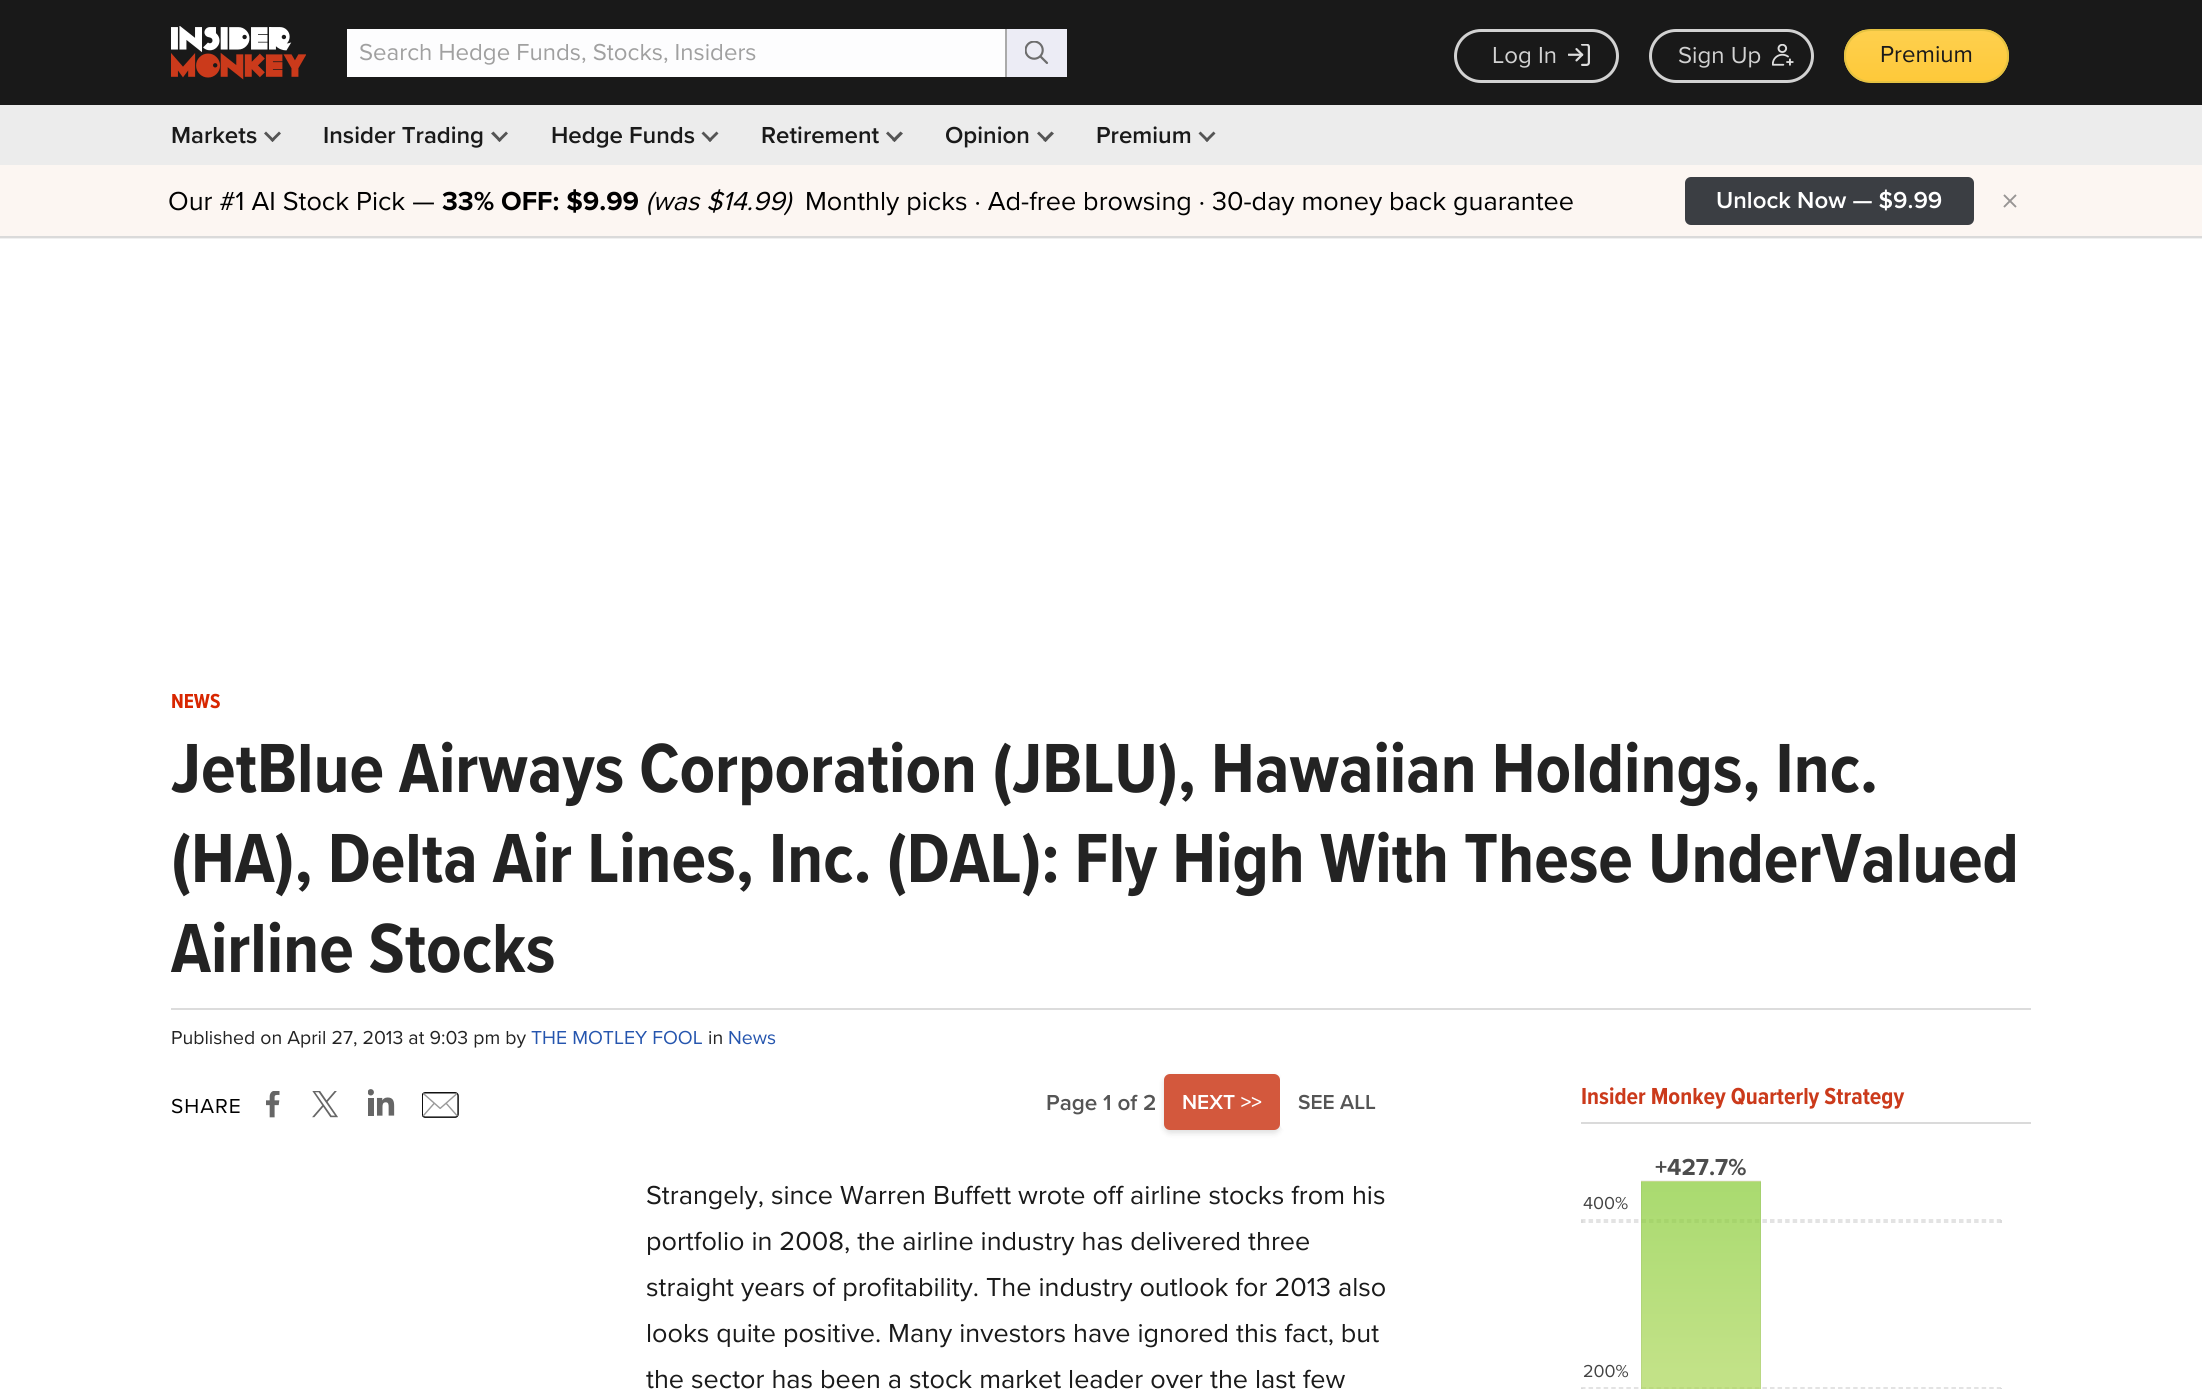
import math
import cairo

surface = cairo.ImageSurface(cairo.Format.RGB24, 2202, 1389)
ctx = cairo.Context(surface)
options = cairo.FontOptions()
options.set_hint_metrics(cairo.HintMetrics.OFF)
options.set_hint_style(cairo.HintStyle.NONE)
ctx.set_font_options(options)
ctx.set_miter_limit(4)


def ink(r, g, b):
    ctx.set_source_rgb(r / 255, g / 255, b / 255)


def write(x, y, s, family, size, color, bold=False, italic=False):
    ctx.select_font_face(family, cairo.FontSlant.ITALIC if italic else cairo.FontSlant.NORMAL, cairo.FontWeight.BOLD if bold else cairo.FontWeight.NORMAL)
    ctx.set_font_size(size)
    ink(*color)
    ctx.move_to(x, y)
    ctx.show_text(s)


def write_spaced(x, y, s, letter, word):
    ctx.move_to(x, y)
    for ch in s:
        ctx.show_text(ch)
        ctx.rel_move_to(letter + word * (ch == ' '), 0)


def block(x, y, w, h, *color):
    ink(*color)
    ctx.rectangle(x, y, w, h)
    ctx.fill()


def round_path(x, y, w, h, r):
    ctx.new_sub_path()
    for i, (u, v) in enumerate([(x + w - r, y + h - r), (x + r, y + h - r), (x + r, y + r), (x + w - r, y + r)]):
        ctx.arc(u, v, r, i * math.pi / 2, (i + 1) * math.pi / 2)
    ctx.close_path()


def blur_box(x, y, w, h, r, blur, alpha):
    ctx.push_group_with_content(cairo.Content.ALPHA)
    ctx.set_operator(cairo.Operator.SOURCE)
    for i in range(15, -16, -2):
        e = blur * i / 6
        if min(w, h) + 2 * e > 0:
            ctx.set_source_rgba(0, 0, 0, alpha * math.erfc((i - 1) / 8.5) / 2)
            round_path(x - e, y - e, w + 2 * e, h + 2 * e, max(0, min(r + e + blur * .6, min(w, h) / 2 + e)))
            ctx.fill()
    ctx.mask(ctx.pop_group())


def paste(path, x, y, w, h):
    ctx.save()
    ctx.set_source_surface(cairo.ImageSurface.create_from_png(path), x, y)
    ctx.rectangle(x, y, w, h)
    ctx.fill()
    ctx.restore()


s1 = dict(family="Proxima Nova", size=24, color=(160, 160, 160))
s2 = dict(family="Proxima Nova", size=24, color=(210, 210, 210))
s3 = dict(family="Proxima Nova", size=24, color=(26, 26, 26))
s4 = dict(family="Proxima Nova SemiBold", size=24, color=(26, 26, 26))
s5 = dict(family="Proxima Nova", size=27, color=(0, 0, 0))
s6 = dict(family="Proxima Nova", size=27, color=(0, 0, 0), bold=True)
s7 = dict(family="Proxima Nova", size=27, color=(0, 0, 0), italic=True)
s8 = dict(family="Proxima Nova SemiBold", size=24, color=(255, 255, 255))
s9 = dict(family="Proxima Nova", size=36, color=(152, 149, 148))
s10 = dict(family="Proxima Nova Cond", size=21, color=(216, 38, 0), bold=True)
s11 = dict(family="Proxima Nova Cond", size=72, color=(35, 35, 35), bold=True)
s12 = dict(family="Proxima Nova", size=19.5, color=(35, 35, 35))
s13 = dict(family="Proxima Nova", size=19.5, color=(37, 85, 174))
s14 = dict(family="Proxima Nova SemiBold", size=22.5, color=(85, 85, 85))
s15 = dict(family="Proxima Nova SemiBold", size=21, color=(255, 255, 255))
s16 = dict(family="Proxima Nova SemiBold", size=21, color=(85, 85, 85))
s17 = dict(family="Proxima Nova", size=27, color=(26, 26, 26))
s18 = dict(family="Proxima Nova Cond", size=24, color=(203, 58, 27), bold=True)
s19 = dict(family="Proxima Nova", size=24, color=(77, 77, 77), bold=True)
s20 = dict(family="Proxima Nova", size=18, color=(68, 68, 68))

ink(255, 255, 255)
ctx.paint()
block(0, 0, 2202, 105, 25, 25, 25)
paste("pic1.png", 171, 26, 135, 54)
block(347, 29, 658, 48, 253, 253, 254)
write(359, 60, "Search Hedge Funds, Stocks, Insiders", **s1)
block(1007, 29, 60, 48, 236, 236, 245)
block(1005, 29, 2, 48, 170, 170, 170)
paste("pic2.png", 1025, 41, 24, 23)
round_path(1455.5, 30.5, 162, 51, 25.5)
ink(210, 210, 210)
ctx.set_line_width(3)
ctx.stroke()
write(1492, 63, "Log In", **s2)
paste("pic3.png", 1568, 44, 22, 22)
round_path(1650.5, 30.5, 162, 51, 25.5)
ctx.stroke()
write(1678, 63, "Sign Up", **s2)
paste("pic4.png", 1772, 44, 22, 22)
ctx.save()
round_path(1844, 29, 165, 54, 27)
ctx.clip()
gradient = cairo.LinearGradient(1926, 30, 1926, 81)
gradient.add_color_stop_rgba(0, 0.996, 0.816, 0.306, 1)
gradient.add_color_stop_rgba(1, 0.996, 0.788, 0.227, 1)
ctx.set_source(gradient)
ctx.rectangle(1844, 30, 165, 51)
ctx.fill()
ctx.restore()
round_path(1845, 30, 163, 52, 26)
ink(229, 194, 66)
ctx.set_line_width(2)
ctx.stroke()
write(1880, 62, "Premium", **s3)
block(0, 105, 2202, 60, 236, 236, 236)
write(171, 143, "Markets", **s4)
ink(85, 85, 85)
ctx.new_path()
ctx.move_to(279, 131.5)
ctx.line_to(281, 133.5)
ctx.line_to(272.5, 142)
ctx.line_to(270.5, 140)
ctx.close_path()
ctx.fill()
ctx.new_path()
ctx.move_to(266, 131.5)
ctx.line_to(274.5, 140)
ctx.line_to(272.5, 142)
ctx.line_to(264, 133.5)
ctx.close_path()
ctx.fill()
write(323, 143, "Insider Trading", **s4)
ink(85, 85, 85)
ctx.new_path()
ctx.move_to(506, 131.5)
ctx.line_to(508, 133.5)
ctx.line_to(499.5, 142)
ctx.line_to(497.5, 140)
ctx.close_path()
ctx.fill()
ctx.new_path()
ctx.move_to(493.5, 131.5)
ctx.line_to(501.5, 140)
ctx.line_to(499.5, 142)
ctx.line_to(491, 133.5)
ctx.close_path()
ctx.fill()
write(551, 143, "Hedge Funds", **s4)
ink(85, 85, 85)
ctx.new_path()
ctx.move_to(716.5, 131.5)
ctx.line_to(718.5, 133.5)
ctx.line_to(710, 142)
ctx.line_to(708, 140)
ctx.close_path()
ctx.fill()
ctx.new_path()
ctx.move_to(703.5, 131.5)
ctx.line_to(712, 140)
ctx.line_to(710, 142)
ctx.line_to(701.5, 133.5)
ctx.close_path()
ctx.fill()
write(761, 143, "Retirement", **s4)
ink(85, 85, 85)
ctx.new_path()
ctx.move_to(900.5, 131.5)
ctx.line_to(903, 133.5)
ctx.line_to(894.5, 142)
ctx.line_to(892, 140)
ctx.close_path()
ctx.fill()
ctx.new_path()
ctx.move_to(888, 131.5)
ctx.line_to(896.5, 140)
ctx.line_to(894.5, 142)
ctx.line_to(886, 133.5)
ctx.close_path()
ctx.fill()
write(945, 143, "Opinion", **s4)
ink(85, 85, 85)
ctx.new_path()
ctx.move_to(1051.5, 131.5)
ctx.line_to(1054, 133.5)
ctx.line_to(1045.5, 142)
ctx.line_to(1043, 140)
ctx.close_path()
ctx.fill()
ctx.new_path()
ctx.move_to(1039, 131.5)
ctx.line_to(1047.5, 140)
ctx.line_to(1045.5, 142)
ctx.line_to(1037, 133.5)
ctx.close_path()
ctx.fill()
write(1096, 143, "Premium", **s4)
ink(85, 85, 85)
ctx.new_path()
ctx.move_to(1213.5, 131.5)
ctx.line_to(1215.5, 133.5)
ctx.line_to(1207, 142)
ctx.line_to(1205, 140)
ctx.close_path()
ctx.fill()
ctx.new_path()
ctx.move_to(1200.5, 131.5)
ctx.line_to(1209, 140)
ctx.line_to(1207, 142)
ctx.line_to(1198.5, 133.5)
ctx.close_path()
ctx.fill()
block(0, 238, 2202, 1, 240, 240, 240)
block(0, 165, 2202, 71, 252, 246, 242)
block(0, 236, 2202, 2, 218, 218, 218)
write(168, 210, "Our #1 AI Stock Pick —", **s5)
write(442, 210, "33% OFF: $9.99", **s6)
write(646, 210, "(was $14.99)", **s7)
write(805, 210, "Monthly picks · Ad-free browsing · 30-day money back guarantee", **s5)
ink(59, 62, 67)
round_path(1686, 178, 287, 46, 5)
ctx.fill_preserve()
ctx.stroke()
write(1716, 208, "Unlock Now — $9.99", **s8)
write(2001, 213, "×", **s9)
write(171, 708, "NEWS", **s10)
block(171, 1008, 1860, 2, 220, 220, 220)
write(171, 792, "JetBlue Airways Corporation (JBLU), Hawaiian Holdings, Inc.", **s11)
write(171, 882, "(HA), Delta Air Lines, Inc. (DAL): Fly High With These UnderValued", **s11)
write(171, 972, "Airline Stocks", **s11)
write(171, 1044, "Published on April 27, 2013 at 9:03 pm by", **s12)
write(531, 1044, "THE MOTLEY FOOL", **s13)
write(708, 1044, "in", **s12)
write(728, 1044, "News", **s13)
ctx.set_font_size(21)
ink(0, 0, 0)
write_spaced(171, 1113, "SHARE", 1, 0)
paste("pic5.png", 266, 1091, 14, 27)
paste("pic6.png", 312, 1091, 26, 27)
paste("pic7.png", 368, 1089, 27, 27)
paste("pic8.png", 422, 1092, 37, 26)
write(1046, 1110, "Page 1 of 2", **s14)
ink(38, 38, 38)
blur_box(1164, 1077, 116, 56, 6, 3, 0.15)
ink(211, 88, 61)
round_path(1164, 1074, 116, 56, 6)
ctx.fill()
write(1182, 1109, "NEXT >>", **s15)
round_path(1280, 1074, 114, 56, 6)
ctx.fill()
write(1298, 1109, "SEE ALL", **s16)
write(646, 1204, "Strangely, since Warren Buffett wrote off airline stocks from his", **s17)
write(646, 1250, "portfolio in 2008, the airline industry has delivered three", **s17)
write(646, 1296, "straight years of profitability. The industry outlook for 2013 also", **s17)
write(646, 1342, "looks quite positive. Many investors have ignored this fact, but", **s17)
write(646, 1388, "the sector has been a stock market leader over the last few", **s17)
block(1581, 1122, 450, 2, 218, 218, 218)
write(1581, 1104, "Insider Monkey Quarterly Strategy", **s18)
gradient = cairo.LinearGradient(1701, 1182, 1701, 809)
gradient.add_color_stop_rgba(0, 0.804, 0.886, 0.576, 1)
gradient.add_color_stop_rgba(0.5, 0.761, 0.886, 0.529, 1)
gradient.add_color_stop_rgba(1, 0.667, 0.859, 0.439, 1)
ctx.set_source(gradient)
ctx.rectangle(1641, 1181, 120, 1)
ctx.fill()
ctx.new_path()
ctx.move_to(1581, 1220)
ctx.line_to(2001, 1220)
ink(218, 218, 218)
ctx.set_line_width(1.5)
ctx.set_dash([4.5, 3.06])
ctx.stroke()
block(2000, 1220, 2, 3, 218, 218, 218)
ctx.new_path()
ctx.move_to(1581, 1222)
ctx.line_to(2001, 1222)
ctx.stroke()
ctx.new_path()
ctx.move_to(1581, 1388)
ctx.line_to(2001, 1388)
ctx.stroke()
gradient = cairo.LinearGradient(1701, 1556, 1701, 1182)
gradient.add_color_stop_rgba(0, 0.722, 0.839, 0.396, 0.7)
gradient.add_color_stop_rgba(0.5, 0.659, 0.839, 0.329, 0.7)
gradient.add_color_stop_rgba(1, 0.522, 0.796, 0.2, 0.7)
ctx.set_source(gradient)
ctx.rectangle(1641, 1182, 120, 207)
ctx.fill()
ctx.set_source_rgba(0.302, 0.302, 0.302, 0.07)
ctx.new_path()
ctx.move_to(1641, 1180)
ctx.line_to(1761, 1180)
ctx.line_to(1760, 1182)
ctx.line_to(1642, 1182)
ctx.close_path()
ctx.fill()
ctx.new_path()
ctx.move_to(1761, 1180)
ctx.line_to(1761, 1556)
ctx.line_to(1760, 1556)
ctx.line_to(1760, 1182)
ctx.close_path()
ctx.fill()
ctx.set_source_rgba(0, 0, 0, 0.05)
ctx.new_path()
ctx.move_to(1641, 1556)
ctx.line_to(1641, 1180)
ctx.line_to(1642, 1182)
ctx.line_to(1642, 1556)
ctx.close_path()
ctx.fill()
write(1655, 1175, "+427.7%", **s19)
block(1581, 1220, 2, 3, 218, 218, 218)
write(1583, 1209, "400%", **s20)
block(2000, 1388, 2, 1, 218, 218, 218)
block(1581, 1388, 2, 1, 218, 218, 218)
write(1583, 1377, "200%", **s20)
surface.write_to_png("screenshot.png")
